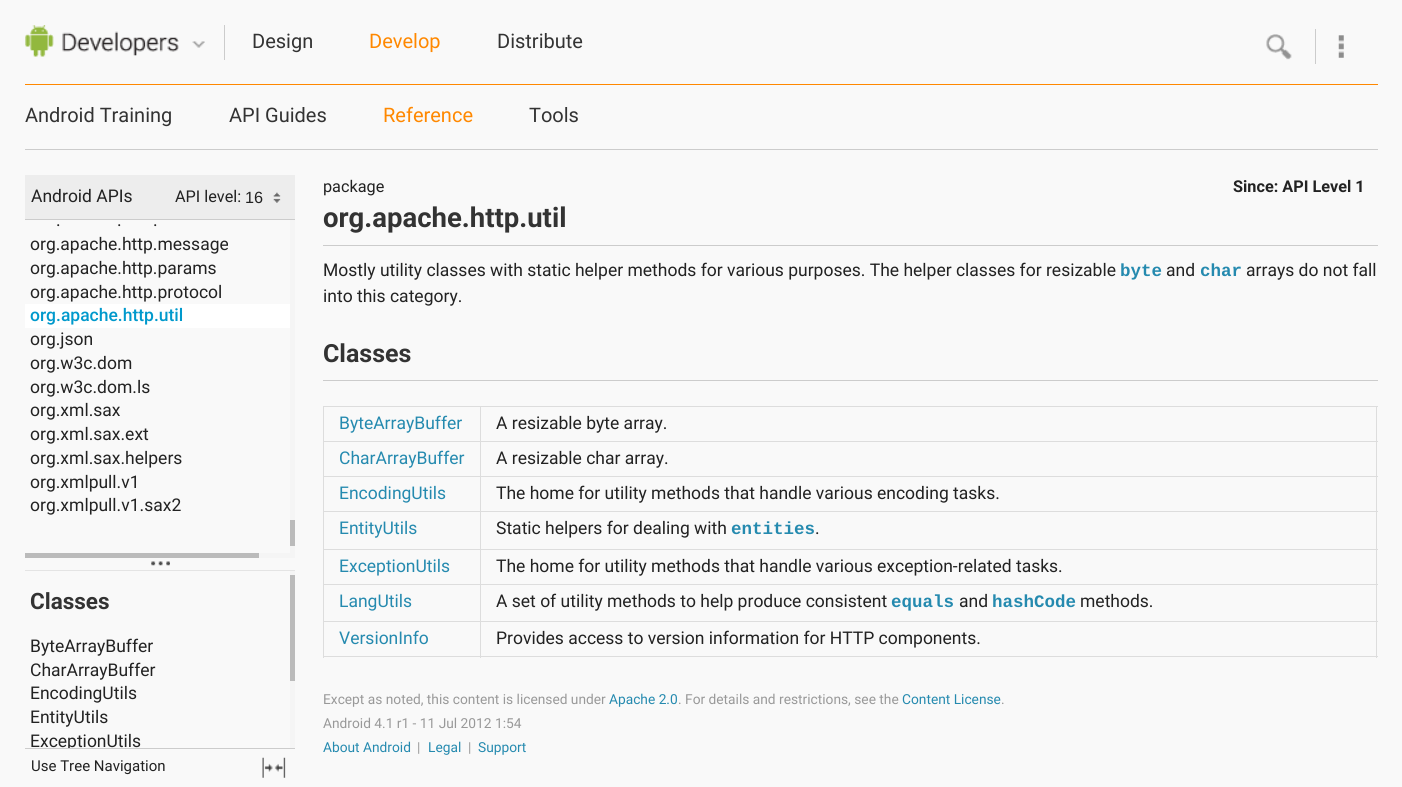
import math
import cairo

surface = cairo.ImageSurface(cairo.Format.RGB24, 1402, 787)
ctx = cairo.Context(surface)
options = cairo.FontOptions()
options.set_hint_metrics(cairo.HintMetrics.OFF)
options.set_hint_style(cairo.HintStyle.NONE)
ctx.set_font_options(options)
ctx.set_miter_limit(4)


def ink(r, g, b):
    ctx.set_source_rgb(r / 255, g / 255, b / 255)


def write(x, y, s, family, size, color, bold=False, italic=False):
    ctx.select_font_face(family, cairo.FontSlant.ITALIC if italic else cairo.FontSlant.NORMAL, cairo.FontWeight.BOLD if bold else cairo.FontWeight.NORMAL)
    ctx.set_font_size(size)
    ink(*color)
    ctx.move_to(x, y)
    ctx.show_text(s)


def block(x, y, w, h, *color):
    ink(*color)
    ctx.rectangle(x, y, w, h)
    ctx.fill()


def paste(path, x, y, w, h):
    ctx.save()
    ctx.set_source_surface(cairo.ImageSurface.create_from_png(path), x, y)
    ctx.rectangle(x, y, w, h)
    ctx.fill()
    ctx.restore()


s1 = dict(family="Roboto", size=20, color=(51, 51, 51))
s2 = dict(family="Roboto", size=20, color=(255, 136, 0))
s3 = dict(family="Roboto", size=17.5, color=(34, 34, 34))
s4 = dict(family="Roboto", size=16.25, color=(34, 34, 34))
s5 = dict(family="Liberation Sans", size=16.25, color=(34, 34, 34))
s6 = dict(family="Roboto Medium", size=17.5, color=(0, 153, 204))
s7 = dict(family="Roboto", size=22.5, color=(51, 51, 51), bold=True)
s8 = dict(family="Roboto", size=15, color=(34, 34, 34))
s9 = dict(family="Roboto", size=27.5, color=(51, 51, 51), bold=True)
s10 = dict(family="Roboto", size=16.25, color=(34, 34, 34), bold=True)
s11 = dict(family="Liberation Mono", size=17.5, color=(37, 138, 175), bold=True)
s12 = dict(family="Roboto", size=25, color=(51, 51, 51), bold=True)
s13 = dict(family="Roboto", size=17.5, color=(37, 138, 175))
s14 = dict(family="Roboto", size=13.75, color=(153, 153, 153))
s15 = dict(family="Roboto", size=13.75, color=(37, 138, 175))

ink(249, 249, 249)
ctx.paint()
block(25, 84, 1353, 1, 255, 136, 0)
paste("pic1.png", 25, 25, 154, 32)
block(224, 25, 1, 35, 204, 204, 204)
paste("pic2.png", 192, 41, 13, 7)
write(252, 48, "Design", **s1)
write(369, 48, "Develop", **s2)
write(497, 48, "Distribute", **s1)
paste("pic3.png", 1266, 34, 26, 26)
paste("pic4.png", 1338, 35, 6, 23)
block(1315, 29, 1, 35, 204, 204, 204)
block(25, 149, 1353, 1, 204, 204, 204)
write(25, 122, "Android Training", **s1)
write(229, 122, "API Guides", **s1)
write(383, 122, "Reference", **s2)
write(529, 122, "Tools", **s1)
block(25, 175, 270, 44, 237, 237, 237)
block(25, 219, 270, 1, 204, 204, 204)
write(31, 202, "Android APIs", **s3)
write(175, 202, "API level:", **s4)
paste("pic5.png", 273, 192, 8, 11)
write(245, 203, "16", **s5)
write(56, 226, ".", **s3)
write(117, 226, ".", **s3)
write(153, 226, ".", **s3)
write(30, 250, "org.apache.http.message", **s3)
write(30, 274, "org.apache.http.params", **s3)
write(30, 298, "org.apache.http.protocol", **s3)
block(25, 304, 265, 24, 255, 255, 255)
write(30, 321, "org.apache.http.util", **s6)
write(30, 345, "org.json", **s3)
write(30, 369, "org.w3c.dom", **s3)
write(30, 393, "org.w3c.dom.ls", **s3)
write(30, 416, "org.xml.sax", **s3)
write(30, 440, "org.xml.sax.ext", **s3)
write(30, 464, "org.xml.sax.helpers", **s3)
write(30, 488, "org.xmlpull.v1", **s3)
write(30, 511, "org.xmlpull.v1.sax2", **s3)
block(290, 220, 5, 338, 245, 245, 245)
block(290, 520, 5, 26, 187, 187, 187)
block(259, 553, 36, 5, 245, 245, 245)
block(25, 553, 234, 5, 187, 187, 187)
paste("pic6.png", 151, 561, 19, 5)
block(290, 570, 5, 178, 245, 245, 245)
block(25, 570, 270, 1, 228, 228, 228)
write(30, 609, "Classes", **s7)
write(30, 652, "ByteArrayBuffer", **s3)
write(30, 676, "CharArrayBuffer", **s3)
write(30, 699, "EncodingUtils", **s3)
write(30, 723, "EntityUtils", **s3)
ctx.save()
ctx.rectangle(25, 570, 130, 178)
ctx.clip()
write(30, 747, "ExceptionUtils", **s3)
ctx.restore()
block(290, 575, 5, 106, 187, 187, 187)
block(25, 748, 270, 1, 204, 204, 204)
write(31, 771, "Use Tree Navigation", **s8)
paste("pic7.png", 262, 757, 24, 21)
block(323, 245, 1055, 1, 204, 204, 204)
write(323, 192, "package", **s4)
write(323, 227, "org.apache.http.util", **s9)
write(1233, 192, "Since: API Level 1", **s10)
write(323, 276, "Mostly utility classes with static helper methods for various purposes. The helper classes for resizable", **s3)
write(1120, 276, "byte", **s11)
write(1166, 276, "and", **s3)
write(1200, 276, "char", **s11)
write(1246, 276, "arrays do not fall", **s3)
write(323, 302, "into this category.", **s3)
write(323, 362, "Classes", **s12)
block(323, 380, 1055, 1, 204, 204, 204)
block(480, 406, 898, 1, 221, 221, 221)
block(480, 441, 898, 1, 221, 221, 221)
block(480, 476, 898, 1, 221, 221, 221)
block(480, 511, 898, 1, 221, 221, 221)
block(480, 549, 898, 1, 221, 221, 221)
block(480, 584, 898, 1, 221, 221, 221)
block(480, 621, 898, 1, 221, 221, 221)
block(1376, 621, 1, 37, 221, 221, 221)
block(480, 656, 898, 1, 221, 221, 221)
block(480, 621, 1, 37, 221, 221, 221)
block(323, 621, 158, 1, 221, 221, 221)
block(480, 584, 1, 39, 221, 221, 221)
block(323, 584, 158, 1, 221, 221, 221)
block(480, 549, 1, 36, 221, 221, 221)
block(323, 549, 158, 1, 221, 221, 221)
block(480, 511, 1, 39, 221, 221, 221)
block(323, 511, 158, 1, 221, 221, 221)
block(480, 476, 1, 37, 221, 221, 221)
block(323, 476, 158, 1, 221, 221, 221)
block(480, 441, 1, 37, 221, 221, 221)
block(323, 441, 158, 1, 221, 221, 221)
block(480, 406, 1, 37, 221, 221, 221)
block(323, 406, 158, 1, 221, 221, 221)
block(323, 656, 158, 1, 221, 221, 221)
block(323, 621, 1, 37, 221, 221, 221)
block(323, 584, 1, 39, 221, 221, 221)
block(323, 549, 1, 36, 221, 221, 221)
block(323, 511, 1, 39, 221, 221, 221)
block(323, 476, 1, 37, 221, 221, 221)
block(323, 441, 1, 37, 221, 221, 221)
block(323, 406, 1, 37, 221, 221, 221)
write(339, 429, "ByteArrayBuffer", **s13)
block(1376, 584, 1, 39, 221, 221, 221)
block(1376, 549, 1, 36, 221, 221, 221)
block(1376, 511, 1, 39, 221, 221, 221)
block(1376, 476, 1, 37, 221, 221, 221)
block(1376, 441, 1, 37, 221, 221, 221)
block(1376, 406, 1, 37, 221, 221, 221)
write(496, 429, "A resizable byte array.", **s3)
write(339, 464, "CharArrayBuffer", **s13)
write(496, 464, "A resizable char array.", **s3)
write(339, 499, "EncodingUtils", **s13)
write(496, 499, "The home for utility methods that handle various encoding tasks.", **s3)
write(339, 534, "EntityUtils", **s13)
write(496, 534, "Static helpers for dealing with", **s3)
write(731, 534, "entities", **s11)
write(815, 534, ".", **s3)
write(339, 572, "ExceptionUtils", **s13)
write(496, 572, "The home for utility methods that handle various exception-related tasks.", **s3)
write(339, 607, "LangUtils", **s13)
write(496, 607, "A set of utility methods to help produce consistent", **s3)
write(891, 607, "equals", **s11)
write(959, 607, "and", **s3)
write(992, 607, "hashCode", **s11)
write(1080, 607, "methods.", **s3)
write(339, 644, "VersionInfo", **s13)
write(496, 644, "Provides access to version information for HTTP components.", **s3)
write(323, 704, "Except as noted, this content is licensed under", **s14)
write(609, 704, "Apache 2.0", **s15)
write(678, 704, ". For details and restrictions, see the", **s14)
write(902, 704, "Content License", **s15)
write(1001, 704, ".", **s14)
write(323, 728, "Android 4.1 r1 - 11 Jul 2012 1:54", **s14)
write(323, 752, "About Android", **s15)
write(417, 752, "|", **s14)
write(428, 752, "Legal", **s15)
write(468, 752, "|", **s14)
write(478, 752, "Support", **s15)
surface.write_to_png("screenshot.png")
